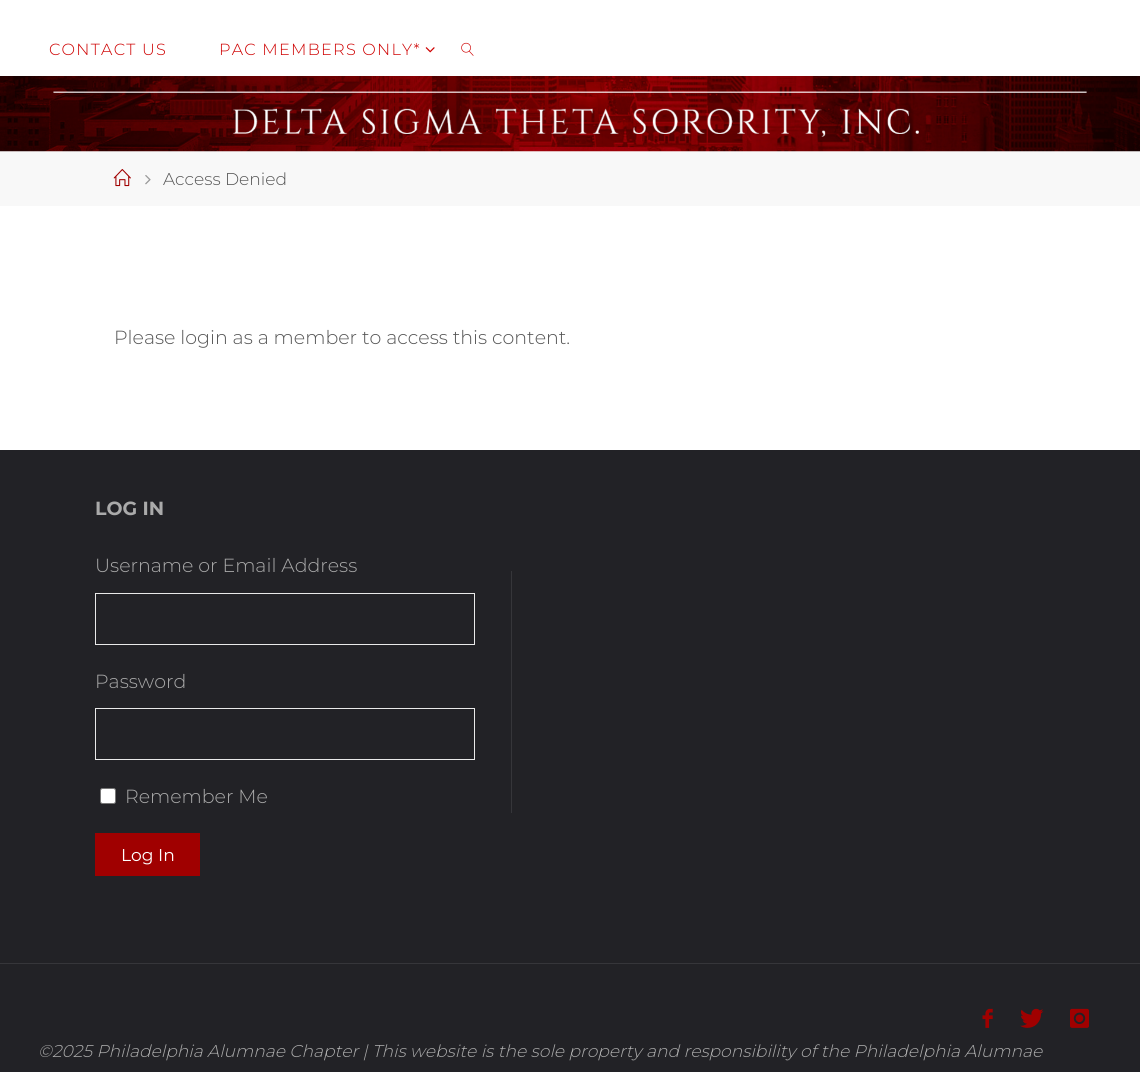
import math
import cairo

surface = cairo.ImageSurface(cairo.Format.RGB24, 1140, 1072)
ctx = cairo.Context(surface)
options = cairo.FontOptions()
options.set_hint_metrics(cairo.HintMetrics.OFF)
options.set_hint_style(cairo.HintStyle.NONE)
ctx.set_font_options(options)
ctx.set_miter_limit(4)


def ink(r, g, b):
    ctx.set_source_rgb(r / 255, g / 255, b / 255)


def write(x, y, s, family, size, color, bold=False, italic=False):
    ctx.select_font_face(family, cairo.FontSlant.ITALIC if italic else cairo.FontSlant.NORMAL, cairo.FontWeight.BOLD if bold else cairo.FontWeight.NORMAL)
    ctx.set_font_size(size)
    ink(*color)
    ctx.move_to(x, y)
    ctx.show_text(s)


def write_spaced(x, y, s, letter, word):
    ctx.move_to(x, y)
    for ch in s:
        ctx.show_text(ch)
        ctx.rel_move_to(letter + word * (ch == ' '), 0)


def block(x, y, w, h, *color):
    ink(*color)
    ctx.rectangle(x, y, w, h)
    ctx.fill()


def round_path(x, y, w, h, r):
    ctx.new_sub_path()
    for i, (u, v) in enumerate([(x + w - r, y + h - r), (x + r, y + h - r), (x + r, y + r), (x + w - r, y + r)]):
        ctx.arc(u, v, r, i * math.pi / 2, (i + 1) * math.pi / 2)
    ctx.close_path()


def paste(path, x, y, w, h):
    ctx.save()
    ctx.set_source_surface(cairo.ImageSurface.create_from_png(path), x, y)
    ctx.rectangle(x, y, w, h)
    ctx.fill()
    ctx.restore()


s1 = dict(family="Montserrat Light", size=17.1, color=(85, 85, 85))
s2 = dict(family="Montserrat Light", size=19, color=(85, 85, 85))
s3 = dict(family="Montserrat", size=19, color=(170, 170, 170), bold=True)
s4 = dict(family="Montserrat Light", size=19, color=(170, 170, 170))
s5 = dict(family="Montserrat", size=17.1, color=(255, 255, 255))
s6 = dict(family="Montserrat Light", size=17.1, color=(170, 170, 170), italic=True)

ink(255, 255, 255)
ctx.paint()
ctx.select_font_face("Montserrat Light")
ctx.set_font_size(16.1)
ink(206, 0, 0)
write_spaced(49, 55, "CONTACT US", 1.25, 0)
write_spaced(219, 55, "PAC MEMBERS ONLY*", 1.25, 0)
paste("pic1.png", 425, 47, 10, 6)
paste("pic2.png", 461, 42, 13, 14)
block(0, 151, 1140, 55, 248, 248, 248)
paste("pic3.png", 0, 76, 1140, 76)
paste("pic4.png", 113, 169, 18, 18)
paste("pic5.png", 145, 175, 6, 10)
write(163, 185, "Access Denied", **s1)
write(114, 344, "Please login as a member to access this content.", **s2)
block(0, 450, 1140, 513, 34, 34, 38)
write(95, 515, "LOG IN", **s3)
write(95, 572, "Username or Email Address", **s4)
ctx.rectangle(95.5, 593.5, 379, 51)
ink(233, 233, 233)
ctx.set_line_width(1)
ctx.stroke()
write(95, 688, "Password", **s4)
ctx.rectangle(95.5, 708.5, 379, 51)
ink(233, 233, 233)
ctx.stroke()
ink(255, 255, 255)
round_path(100.5, 788.5, 15, 15, 2)
ctx.fill_preserve()
ink(118, 118, 118)
ctx.stroke()
write(125, 803, "Remember Me", **s4)
block(95, 833, 105, 43, 160, 0, 0)
write(121, 861, "Log In", **s5)
block(511, 571, 1, 242, 54, 54, 58)
block(0, 964, 1140, 108, 34, 34, 38)
block(0, 963, 1140, 1, 54, 54, 58)
paste("pic6.png", 982, 1008, 11, 20)
paste("pic7.png", 1020, 1008, 24, 20)
paste("pic8.png", 1070, 1008, 19, 20)
write(38, 1057, "©2025 Philadelphia Alumnae Chapter | This website is the sole property and responsibility of the Philadelphia Alumnae", **s6)
surface.write_to_png("screenshot.png")
